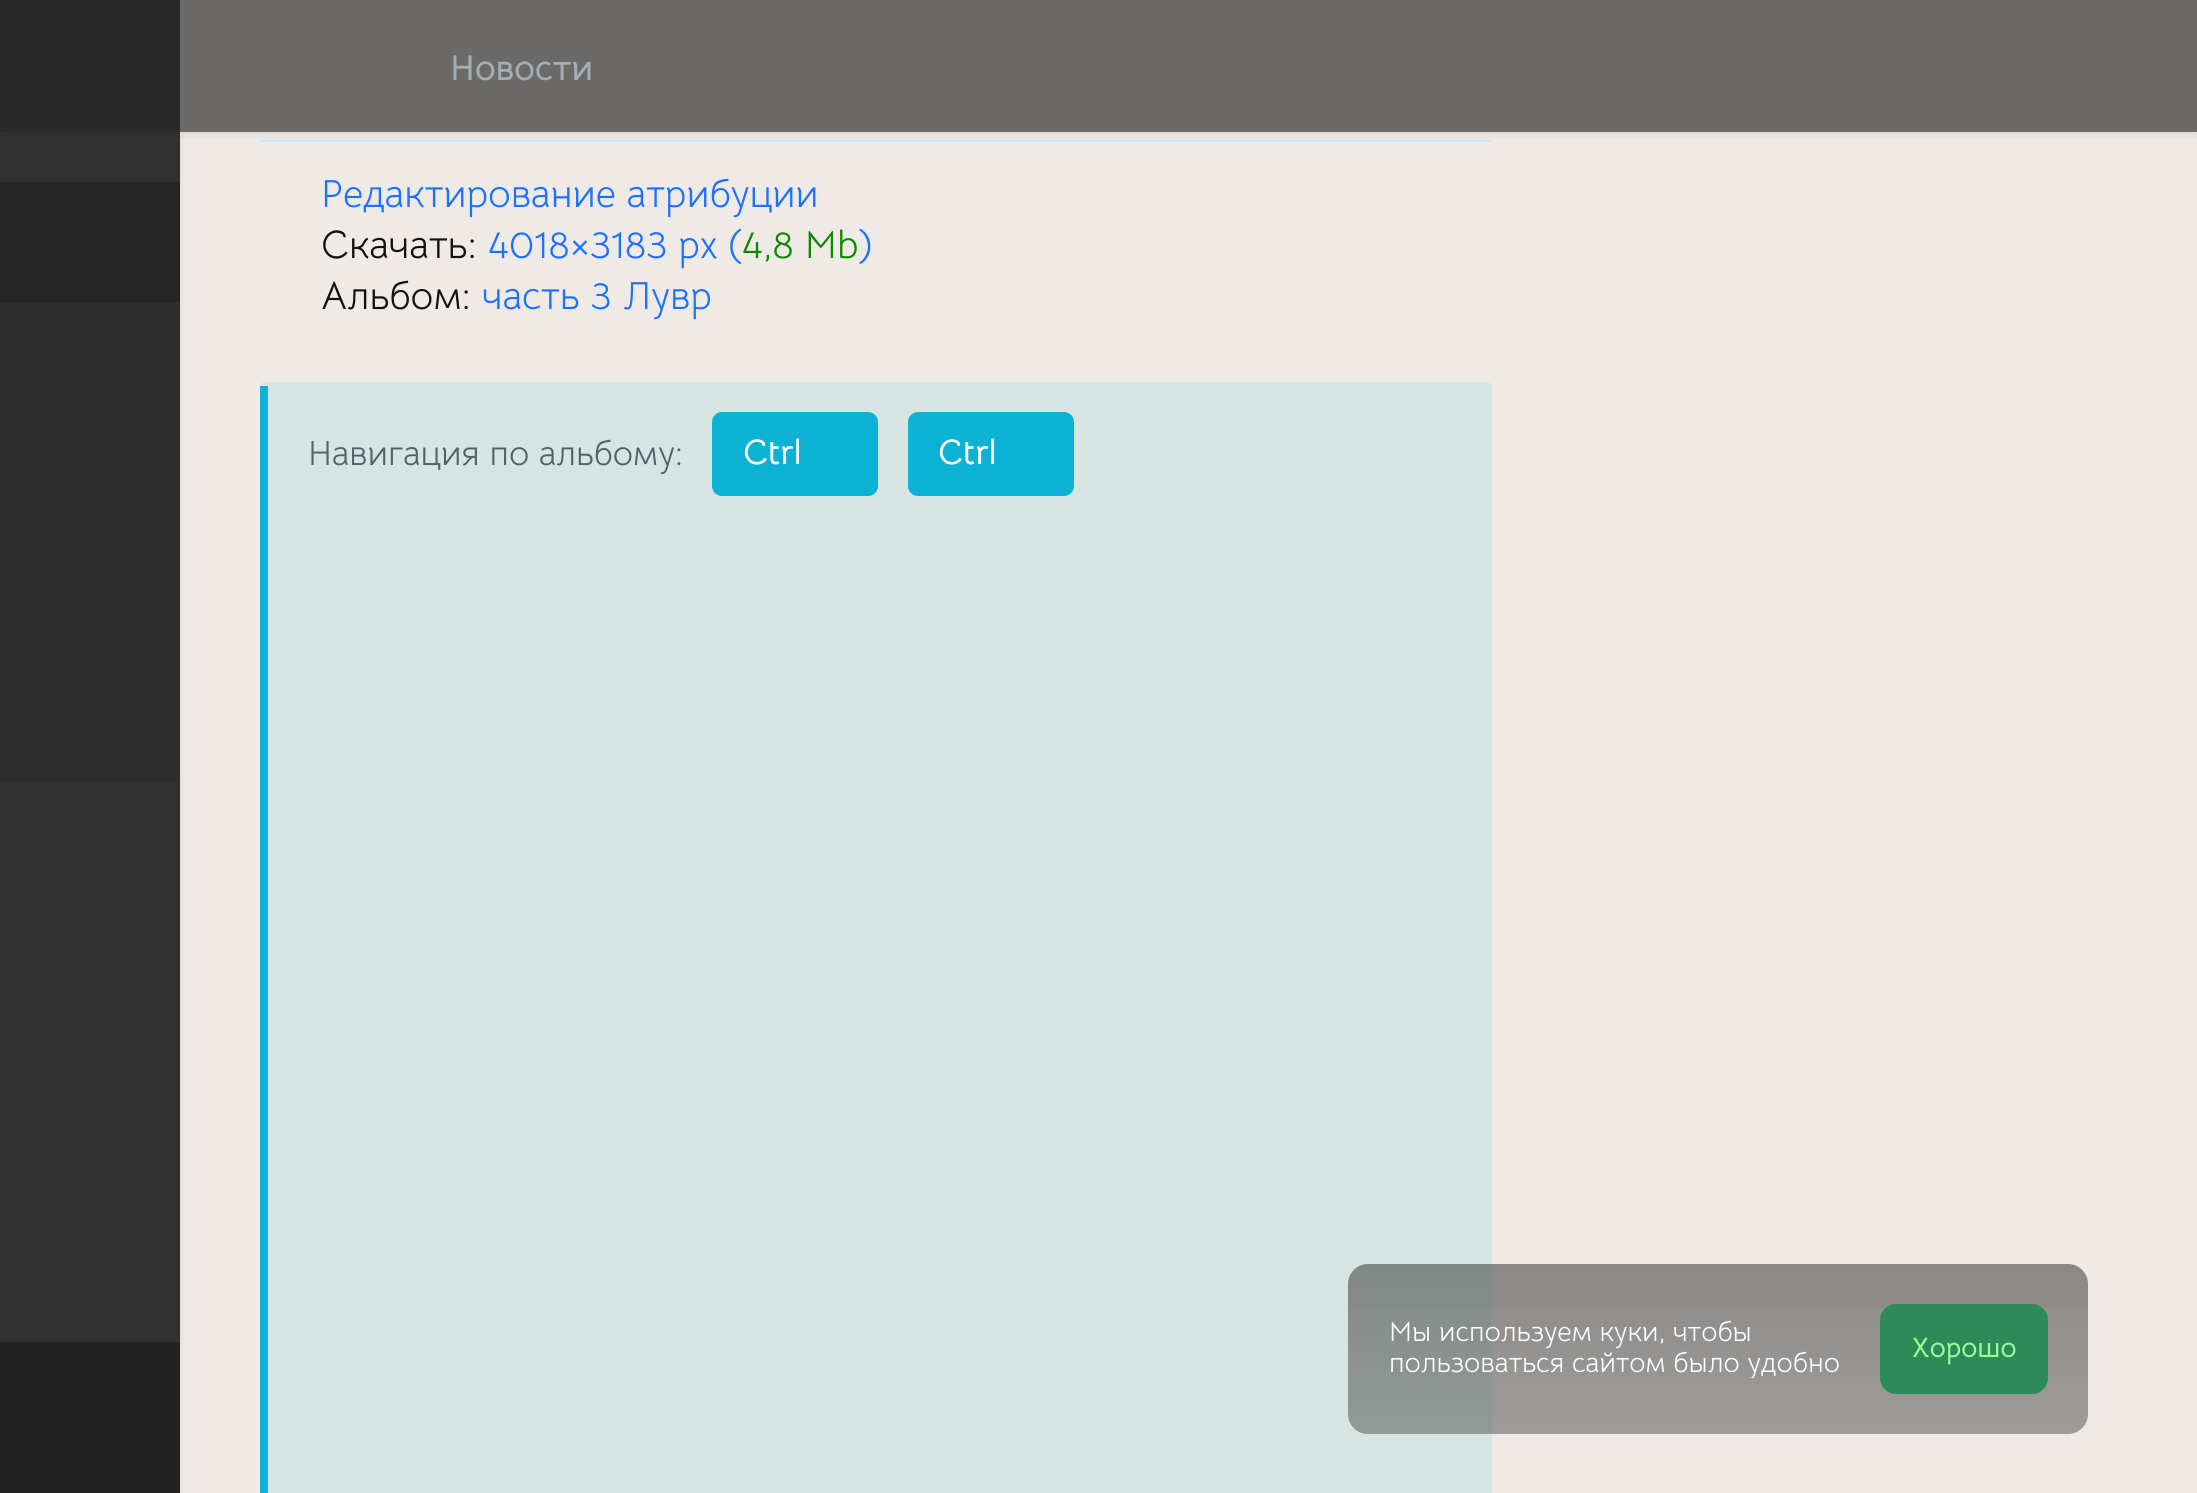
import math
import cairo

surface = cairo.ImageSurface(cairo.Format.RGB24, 2197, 1493)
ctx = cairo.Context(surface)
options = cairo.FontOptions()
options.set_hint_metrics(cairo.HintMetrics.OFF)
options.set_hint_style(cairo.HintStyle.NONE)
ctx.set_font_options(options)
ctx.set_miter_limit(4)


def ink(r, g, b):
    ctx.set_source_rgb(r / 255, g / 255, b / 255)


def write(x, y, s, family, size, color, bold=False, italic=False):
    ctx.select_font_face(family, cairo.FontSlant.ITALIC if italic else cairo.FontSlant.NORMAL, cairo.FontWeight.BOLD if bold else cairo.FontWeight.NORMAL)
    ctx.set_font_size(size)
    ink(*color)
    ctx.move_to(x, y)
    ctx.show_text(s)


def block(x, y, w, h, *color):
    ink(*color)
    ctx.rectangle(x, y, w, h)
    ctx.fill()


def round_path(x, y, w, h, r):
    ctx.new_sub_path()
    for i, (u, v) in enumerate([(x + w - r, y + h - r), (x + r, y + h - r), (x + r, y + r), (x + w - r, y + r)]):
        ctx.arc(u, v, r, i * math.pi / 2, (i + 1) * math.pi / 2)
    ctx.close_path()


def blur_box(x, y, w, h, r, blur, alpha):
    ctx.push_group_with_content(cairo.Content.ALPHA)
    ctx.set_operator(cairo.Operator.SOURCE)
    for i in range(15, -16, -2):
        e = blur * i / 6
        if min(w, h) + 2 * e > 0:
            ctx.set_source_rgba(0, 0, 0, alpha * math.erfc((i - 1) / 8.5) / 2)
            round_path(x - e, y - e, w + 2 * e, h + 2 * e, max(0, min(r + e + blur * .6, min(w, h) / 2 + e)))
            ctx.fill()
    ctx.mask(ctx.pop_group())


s1 = dict(family="Bellota Text", size=36, color=(163, 175, 183), bold=True)
s2 = dict(family="Bellota Text", size=39.25, color=(28, 113, 255))
s3 = dict(family="Bellota Text", size=39.25, color=(17, 17, 17))
s4 = dict(family="Bellota Text", size=39.25, color=(12, 138, 0))
s5 = dict(family="Bellota Text", size=35, color=(82, 96, 105))
s6 = dict(family="Bellota Text", size=35, color=(255, 255, 255), bold=True)
s7 = dict(family="Bellota Text", size=28, color=(255, 255, 255))
s8 = dict(family="Bellota Text", size=28, color=(152, 251, 152), bold=True)

ink(239, 234, 229)
ctx.paint()
ink(0, 0, 0)
blur_box(0, 136, 180, 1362, 0, 4, 0.08)
block(0, 132, 180, 1210, 49, 49, 49)
block(260, 140, 1232, 2, 201, 229, 255)
ctx.save()
ctx.rectangle(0, 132, 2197, 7)
ctx.clip()
ink(0, 0, 0)
blur_box(0, 4, 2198, 132, 0, 4, 0.08)
ctx.restore()
ctx.set_source_rgba(0.231, 0.231, 0.231, 0.73)
ctx.rectangle(180, 0, 2017, 132)
ctx.fill()
block(0, 0, 180, 132, 41, 41, 41)
write(450, 80, "Новости", **s1)
block(0, 182, 180, 120, 37, 37, 37)
block(0, 302, 180, 480, 45, 45, 45)
block(0, 1342, 180, 151, 33, 33, 33)
write(321, 207, "Редактирование атрибуции", **s2)
write(321, 258, "Скачать:", **s3)
write(488, 258, "4018×3183 px (", **s2)
write(742, 258, "4,8 Mb", **s4)
write(858, 258, ")", **s2)
write(321, 309, "Альбом:", **s3)
write(482, 309, "часть 3 Лувр", **s2)
ink(214, 229, 225)
round_path(260, 382, 1232, 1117, 6)
ctx.fill()
block(260, 386, 8, 1107, 11, 178, 212)
write(308, 465, "Навигация по альбому:", **s5)
ink(11, 178, 212)
round_path(713, 413, 164, 82, 9)
ctx.fill_preserve()
ctx.stroke()
write(743, 464, "Ctrl", **s6)
ink(11, 178, 212)
round_path(909, 413, 164, 82, 9)
ctx.fill_preserve()
ctx.stroke()
write(938, 464, "Ctrl", **s6)
gradient = cairo.LinearGradient(1718, 1434, 1718, 1264)
gradient.add_color_stop_rgba(0, 0.333, 0.333, 0.333, 0.52)
gradient.add_color_stop_rgba(1, 0.2, 0.2, 0.2, 0.53)
ctx.set_source(gradient)
round_path(1348, 1264, 740, 170, 20)
ctx.fill()
write(1389, 1341, "Мы используем куки, чтобы", **s7)
ctx.save()
ctx.rectangle(1388, 1318, 452, 60)
ctx.clip()
write(1389, 1372, "пользоваться сайтом было удобно", **s7)
ctx.restore()
ink(46, 139, 87)
round_path(1880, 1304, 168, 90, 16)
ctx.fill()
write(1912, 1357, "Хорошо", **s8)
surface.write_to_png("screenshot.png")
